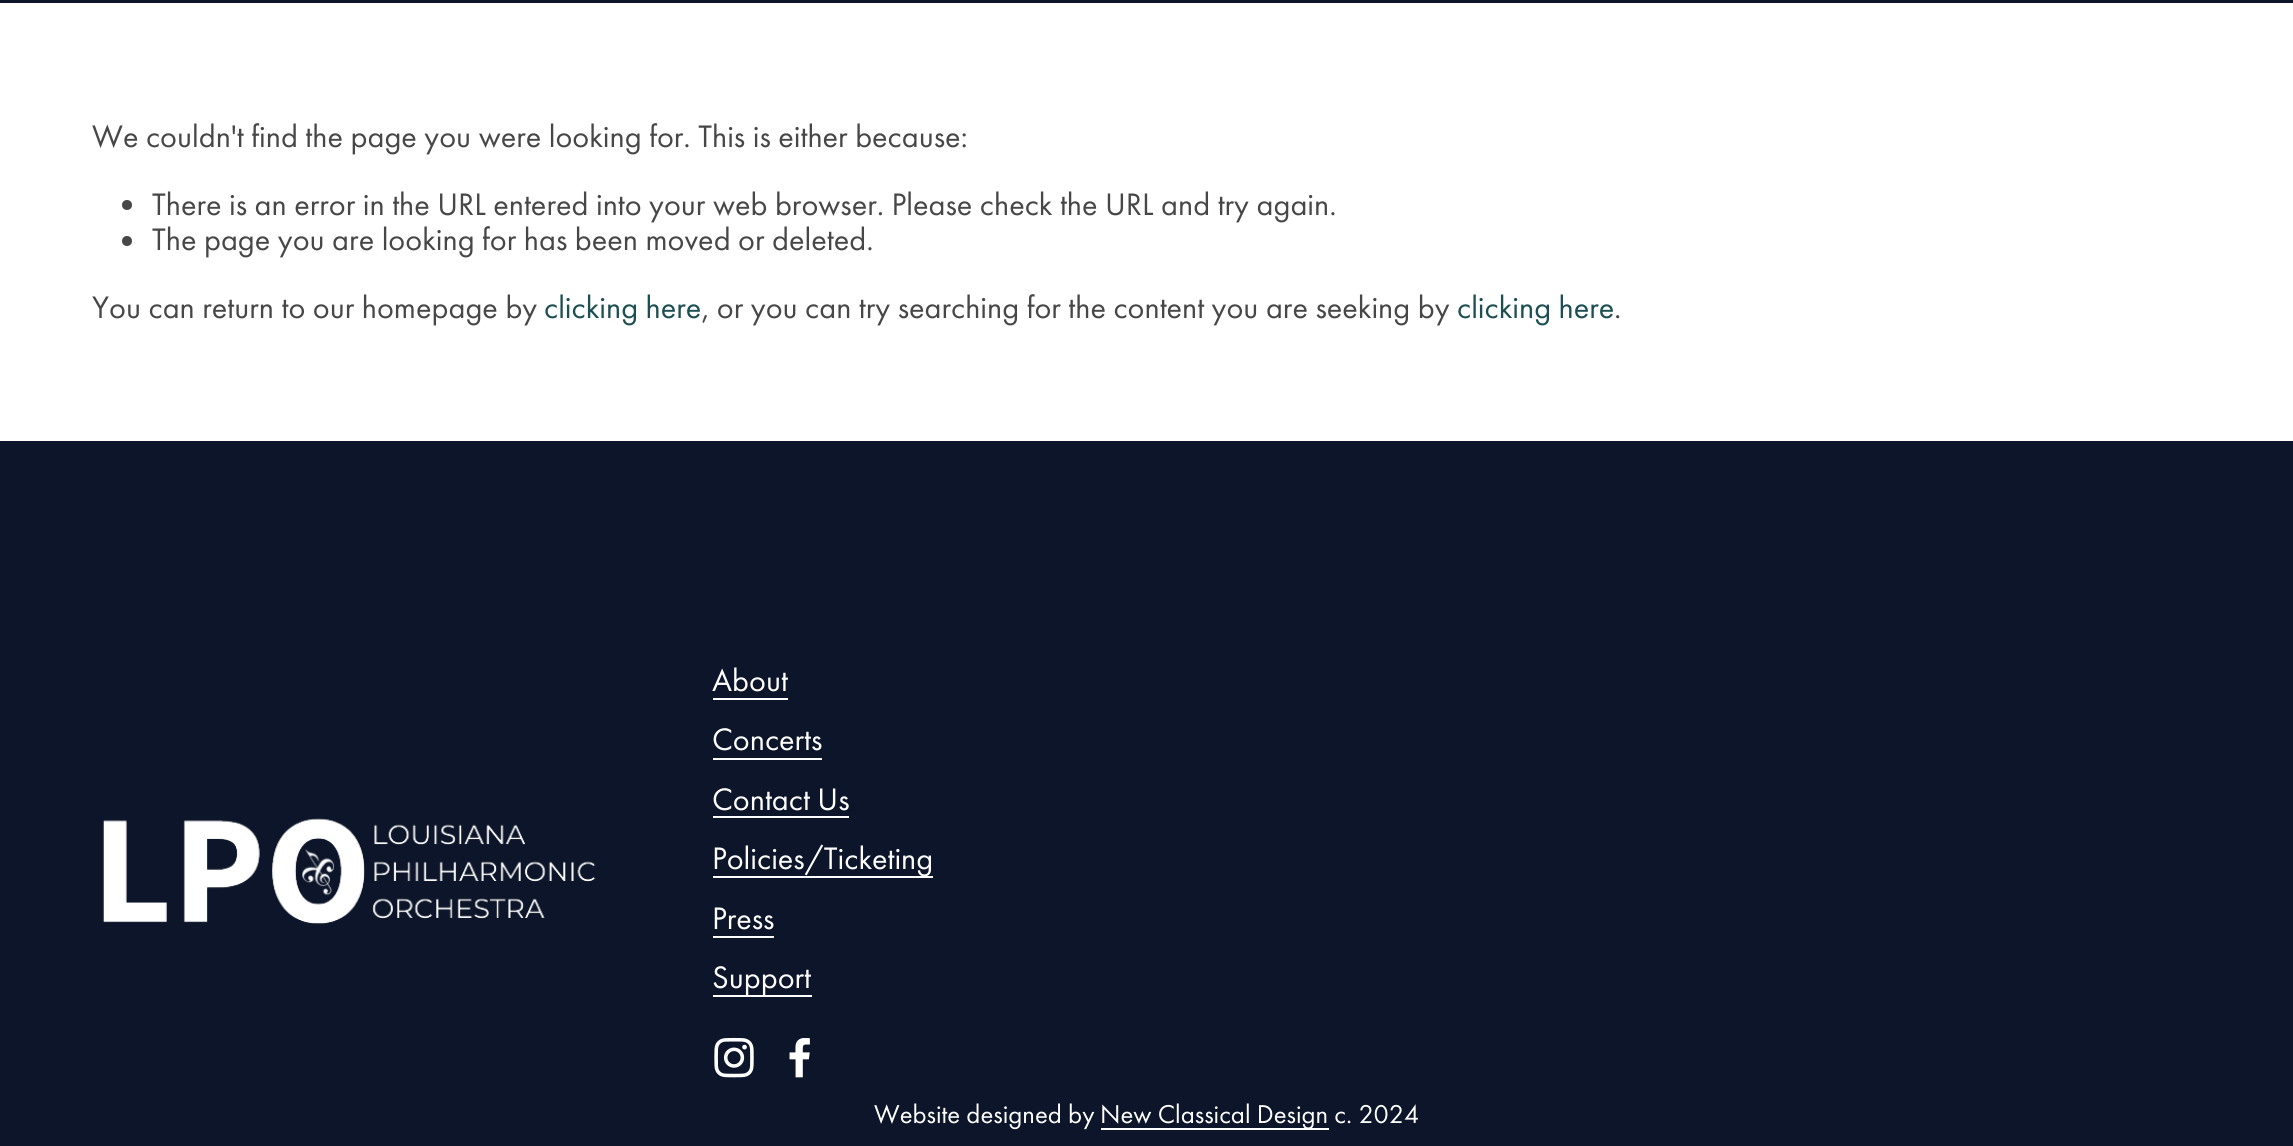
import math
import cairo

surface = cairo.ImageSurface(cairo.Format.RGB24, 2293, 1146)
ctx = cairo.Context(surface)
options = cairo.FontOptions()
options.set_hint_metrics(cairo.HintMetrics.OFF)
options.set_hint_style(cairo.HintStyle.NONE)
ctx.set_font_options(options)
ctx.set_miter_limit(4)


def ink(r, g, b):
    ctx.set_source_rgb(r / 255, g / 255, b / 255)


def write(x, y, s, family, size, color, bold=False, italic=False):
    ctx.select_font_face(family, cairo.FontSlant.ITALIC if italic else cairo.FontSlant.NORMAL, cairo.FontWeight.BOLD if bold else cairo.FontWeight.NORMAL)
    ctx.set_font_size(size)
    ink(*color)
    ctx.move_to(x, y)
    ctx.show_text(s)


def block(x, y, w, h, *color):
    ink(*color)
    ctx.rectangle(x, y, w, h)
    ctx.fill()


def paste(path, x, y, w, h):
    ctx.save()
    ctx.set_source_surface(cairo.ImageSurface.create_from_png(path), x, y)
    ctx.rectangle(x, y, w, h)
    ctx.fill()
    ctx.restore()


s1 = dict(family="Futura PT", size=32.25, color=(71, 71, 71))
s2 = dict(family="Futura PT", size=32.25, color=(28, 78, 82))
s3 = dict(family="Futura PT", size=32.25, color=(255, 255, 255))
s4 = dict(family="Futura PT", size=26.75, color=(255, 255, 255))

ink(255, 255, 255)
ctx.paint()
block(0, 0, 2293, 3, 12, 21, 41)
write(92, 147, "We couldn't find the page you were looking for. This is either because:", **s1)
ctx.new_path()
ctx.arc(127, 205, 5, 0, 2 * math.pi)
ctx.fill()
write(152, 215, "There is an error in the URL entered into your web browser. Please check the URL and try again.", **s1)
ctx.new_path()
ctx.arc(127, 241, 5, 0, 2 * math.pi)
ctx.fill()
write(152, 250, "The page you are looking for has been moved or deleted.", **s1)
write(92, 318, "You can return to our homepage by", **s1)
write(544, 318, "clicking here", **s2)
write(702, 318, ", or you can try searching for the content you are seeking by", **s1)
write(1457, 318, "clicking here", **s2)
write(1614, 318, ".", **s1)
block(0, 441, 2293, 705, 12, 21, 41)
paste("pic1.png", 102, 818, 494, 107)
write(712, 691, "About", **s3)
block(713, 698, 75, 2, 255, 255, 255)
write(712, 750, "Concerts", **s3)
block(713, 758, 109, 2, 255, 255, 255)
write(712, 810, "Contact Us", **s3)
block(713, 816, 136, 2, 255, 255, 255)
block(713, 876, 220, 2, 255, 255, 255)
write(712, 869, "Policies/Ticketing", **s3)
write(712, 929, "Press", **s3)
block(713, 936, 61, 2, 255, 255, 255)
block(713, 995, 99, 2, 255, 255, 255)
write(712, 988, "Support", **s3)
paste("pic2.png", 714, 1037, 40, 41)
paste("pic3.png", 789, 1037, 21, 41)
write(874, 1123, "Website designed by", **s4)
block(1101, 1128, 228, 2, 255, 255, 255)
write(1100, 1123, "New Classical Design c. 2024", **s4)
surface.write_to_png("screenshot.png")
